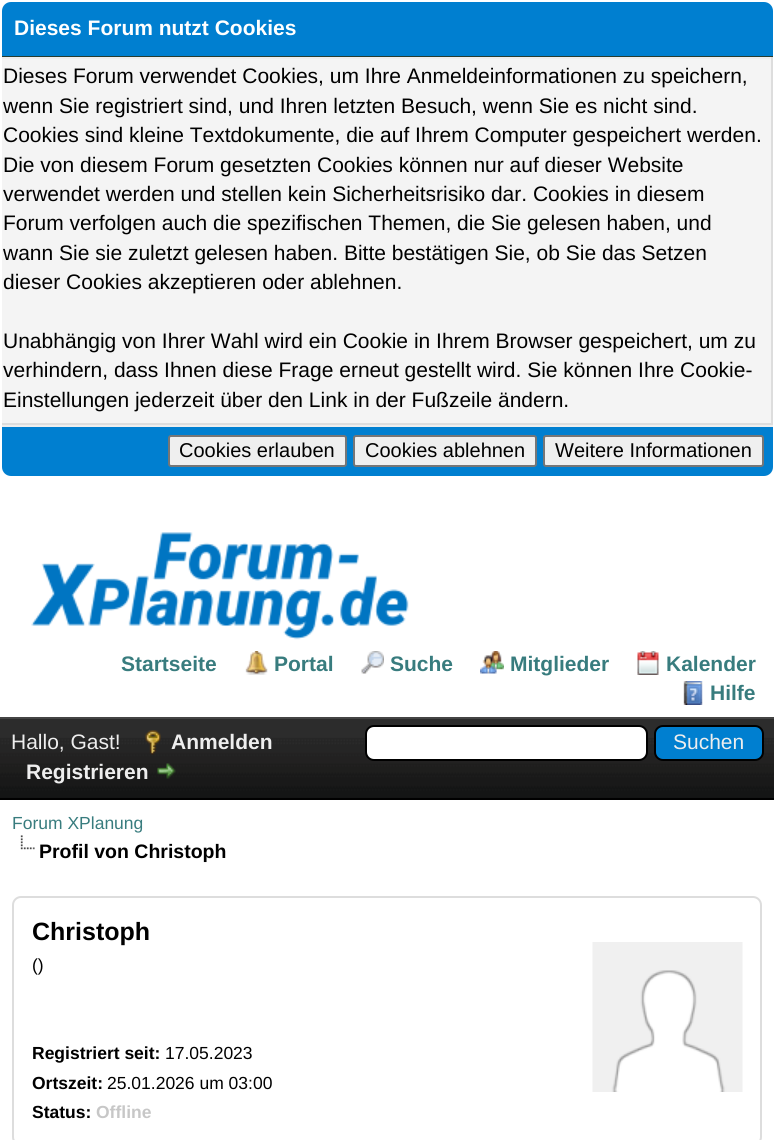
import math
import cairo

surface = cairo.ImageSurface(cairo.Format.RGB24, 774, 1140)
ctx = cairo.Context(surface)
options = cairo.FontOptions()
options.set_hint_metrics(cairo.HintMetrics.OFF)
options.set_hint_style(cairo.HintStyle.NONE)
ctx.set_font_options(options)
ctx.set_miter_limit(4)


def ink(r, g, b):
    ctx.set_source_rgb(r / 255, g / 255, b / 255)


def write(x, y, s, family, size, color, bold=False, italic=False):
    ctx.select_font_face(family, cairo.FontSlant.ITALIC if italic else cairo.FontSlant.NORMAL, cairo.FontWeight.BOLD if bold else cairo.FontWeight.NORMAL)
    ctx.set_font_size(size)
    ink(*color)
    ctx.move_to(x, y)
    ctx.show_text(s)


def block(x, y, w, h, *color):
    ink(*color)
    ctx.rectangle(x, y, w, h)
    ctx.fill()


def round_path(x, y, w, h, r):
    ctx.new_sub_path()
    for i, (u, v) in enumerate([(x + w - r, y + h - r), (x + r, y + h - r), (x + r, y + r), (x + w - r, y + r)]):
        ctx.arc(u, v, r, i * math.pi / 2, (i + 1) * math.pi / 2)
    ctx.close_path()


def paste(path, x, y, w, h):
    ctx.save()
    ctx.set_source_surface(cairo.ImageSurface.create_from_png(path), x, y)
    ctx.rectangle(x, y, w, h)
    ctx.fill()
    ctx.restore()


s1 = dict(family="Liberation Sans", size=21, color=(255, 255, 255), bold=True)
s2 = dict(family="Liberation Sans", size=21, color=(0, 0, 0))
s3 = dict(family="Liberation Sans", size=20, color=(0, 0, 0))
s4 = dict(family="Liberation Sans", size=21, color=(56, 124, 126), bold=True)
s5 = dict(family="Liberation Sans", size=21, color=(238, 238, 238))
s6 = dict(family="Liberation Sans", size=21, color=(238, 238, 238), bold=True)
s7 = dict(family="Liberation Sans", size=17.5, color=(56, 124, 126))
s8 = dict(family="Liberation Sans", size=19.5, color=(0, 0, 0), bold=True)
s9 = dict(family="Liberation Sans", size=25, color=(0, 0, 0), bold=True)
s10 = dict(family="Liberation Sans", size=17.5, color=(0, 0, 0))
s11 = dict(family="Liberation Sans", size=17.5, color=(0, 0, 0), bold=True)
s12 = dict(family="Liberation Sans", size=17.5, color=(199, 199, 199), bold=True)

ink(255, 255, 255)
ctx.paint()
ink(0, 127, 208)
ctx.new_path()
ctx.move_to(11, 2)
ctx.line_to(764, 2)
ctx.curve_to(769, 2, 773, 6, 773, 11)
ctx.line_to(773, 57)
ctx.line_to(2, 57)
ctx.line_to(2, 11)
ctx.curve_to(2, 6, 6, 2, 11, 2)
ctx.close_path()
ctx.fill()
block(2, 56, 771, 1, 38, 60, 48)
write(14, 35, "Dieses Forum nutzt Cookies", **s1)
block(2, 59, 769, 364, 244, 244, 244)
block(2, 57, 771, 2, 238, 238, 238)
block(771, 57, 2, 368, 221, 221, 221)
block(2, 423, 771, 2, 221, 221, 221)
write(3, 83, "Dieses Forum verwendet Cookies, um Ihre Anmeldeinformationen zu speichern,", **s2)
write(3, 113, "wenn Sie registriert sind, und Ihren letzten Besuch, wenn Sie es nicht sind.", **s2)
write(3, 142, "Cookies sind kleine Textdokumente, die auf Ihrem Computer gespeichert werden.", **s2)
write(3, 172, "Die von diesem Forum gesetzten Cookies können nur auf dieser Website", **s2)
write(3, 201, "verwendet werden und stellen kein Sicherheitsrisiko dar. Cookies in diesem", **s2)
write(3, 230, "Forum verfolgen auch die spezifischen Themen, die Sie gelesen haben, und", **s2)
write(3, 260, "wann Sie sie zuletzt gelesen haben. Bitte bestätigen Sie, ob Sie das Setzen", **s2)
write(3, 289, "dieser Cookies akzeptieren oder ablehnen.", **s2)
write(3, 348, "Unabhängig von Ihrer Wahl wird ein Cookie in Ihrem Browser gespeichert, um zu", **s2)
write(3, 377, "verhindern, dass Ihnen diese Frage erneut gestellt wird. Sie können Ihre Cookie-", **s2)
write(3, 407, "Einstellungen jederzeit über den Link in der Fußzeile ändern.", **s2)
ink(0, 127, 208)
ctx.new_path()
ctx.move_to(2, 425)
ctx.line_to(773, 425)
ctx.line_to(773, 467)
ctx.curve_to(773, 472, 769, 476, 764, 476)
ctx.line_to(11, 476)
ctx.curve_to(6, 476, 2, 472, 2, 467)
ctx.close_path()
ctx.fill()
block(2, 425, 771, 2, 238, 238, 238)
ink(239, 239, 239)
round_path(169, 436, 177, 30, 2)
ctx.fill_preserve()
ink(118, 118, 118)
ctx.stroke()
write(179, 457, "Cookies erlauben", **s3)
ink(239, 239, 239)
round_path(354, 436, 182, 30, 2)
ctx.fill_preserve()
ink(118, 118, 118)
ctx.stroke()
write(365, 457, "Cookies ablehnen", **s3)
ink(239, 239, 239)
round_path(544, 436, 219, 30, 2)
ctx.fill_preserve()
ink(118, 118, 118)
ctx.stroke()
write(555, 457, "Weitere Informationen", **s3)
paste("pic1.png", 31, 532, 378, 108)
write(121, 671, "Startseite", **s4)
paste("pic2.png", 245, 651, 23, 24)
write(274, 671, "Portal", **s4)
paste("pic3.png", 361, 651, 23, 23)
write(390, 671, "Suche", **s4)
paste("pic4.png", 480, 651, 24, 23)
write(510, 671, "Mitglieder", **s4)
paste("pic5.png", 637, 651, 22, 24)
write(666, 671, "Kalender", **s4)
paste("pic6.png", 683, 681, 20, 24)
write(710, 700, "Hilfe", **s4)
paste("pic7.png", 0, 719, 774, 79)
block(0, 717, 774, 2, 68, 68, 68)
block(0, 798, 774, 2, 0, 0, 0)
write(11, 749, "Hallo, Gast!", **s5)
paste("pic8.png", 145, 730, 16, 25)
write(171, 749, "Anmelden", **s6)
ink(255, 255, 255)
round_path(366, 726, 281, 34, 8)
ctx.fill_preserve()
ink(0, 0, 0)
ctx.stroke()
ink(0, 127, 208)
round_path(655, 726, 108, 34, 8)
ctx.fill_preserve()
ink(0, 0, 0)
ctx.stroke()
write(673, 749, "Suchen", **s5)
write(26, 779, "Registrieren", **s6)
paste("pic9.png", 157, 763, 19, 16)
write(12, 829, "Forum XPlanung", **s7)
paste("pic10.png", 20, 835, 15, 15)
write(39, 858, "Profil von Christoph", **s8)
round_path(13, 897, 748, 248, 8)
ink(221, 221, 221)
ctx.stroke()
write(32, 940, "Christoph", **s9)
write(32, 971, "()", **s10)
write(32, 1059, "Registriert seit:", **s11)
write(165, 1059, "17.05.2023", **s10)
write(32, 1089, "Ortszeit:", **s11)
write(107, 1089, "25.01.2026 um 03:00", **s10)
write(32, 1118, "Status:", **s11)
write(96, 1118, "Offline", **s12)
paste("pic11.png", 592, 942, 151, 150)
surface.write_to_png("screenshot.png")
